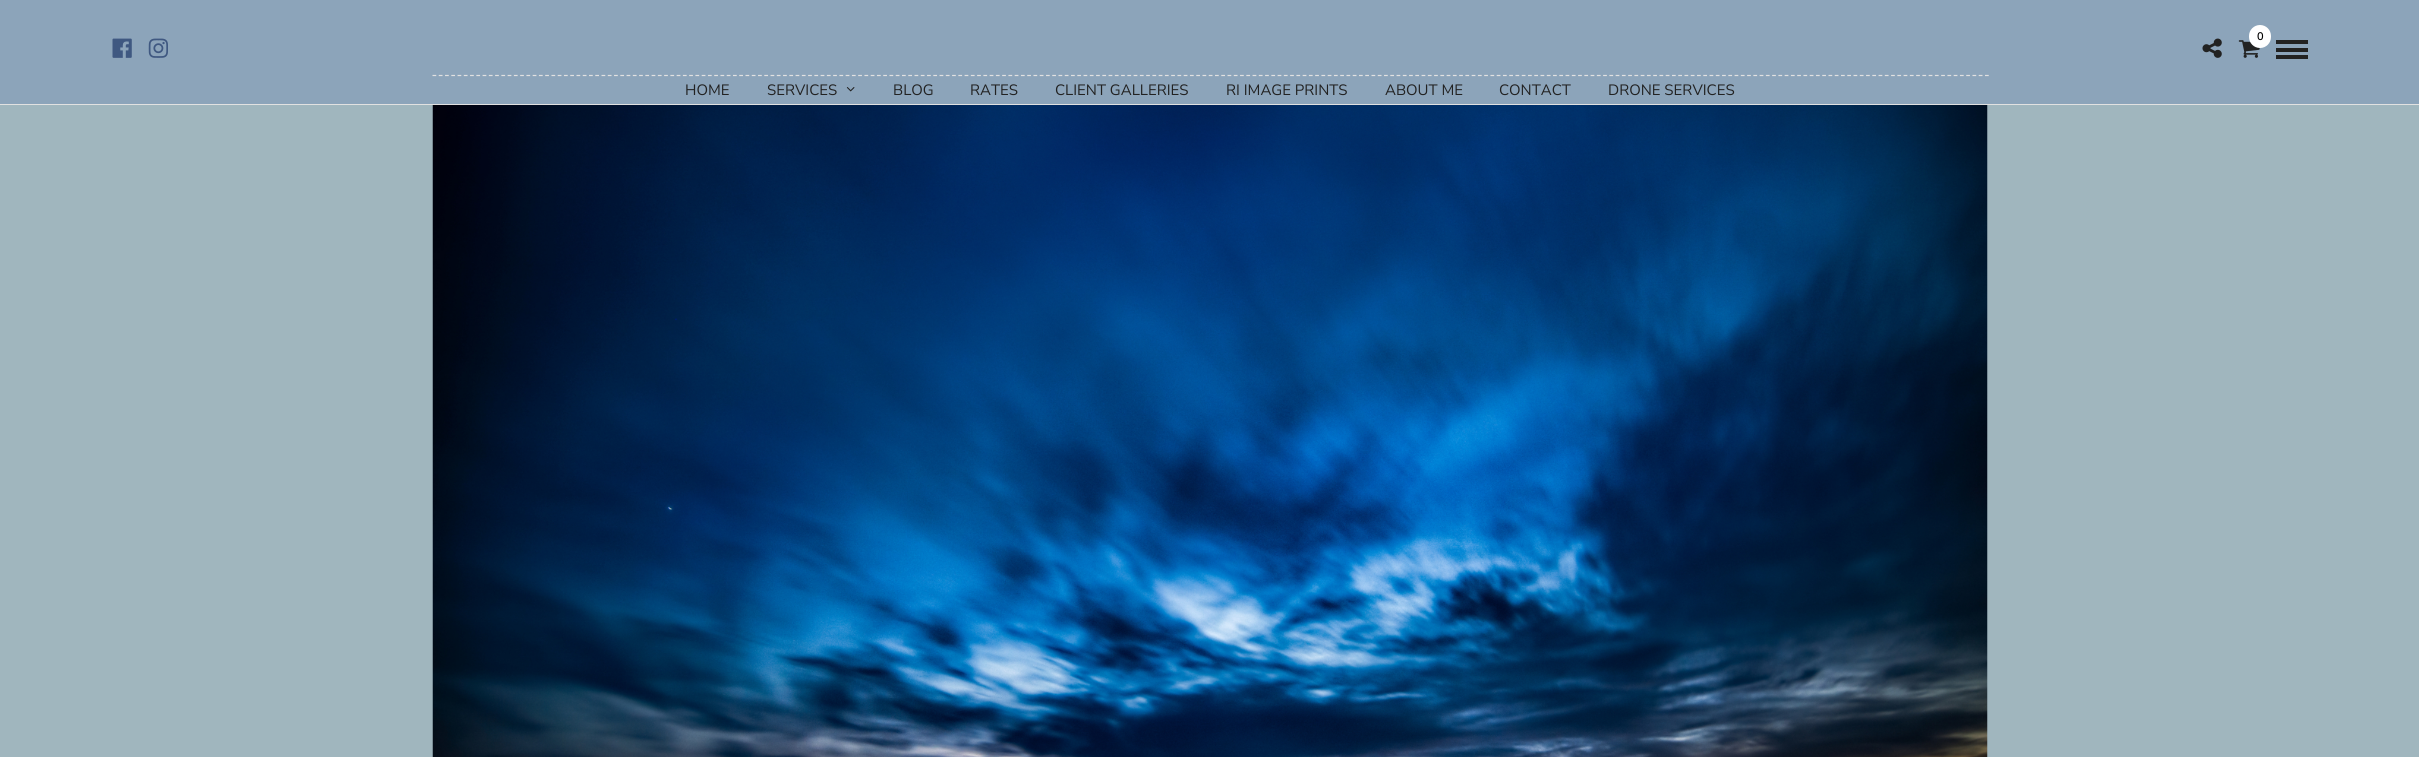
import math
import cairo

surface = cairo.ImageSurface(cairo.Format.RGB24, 2419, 757)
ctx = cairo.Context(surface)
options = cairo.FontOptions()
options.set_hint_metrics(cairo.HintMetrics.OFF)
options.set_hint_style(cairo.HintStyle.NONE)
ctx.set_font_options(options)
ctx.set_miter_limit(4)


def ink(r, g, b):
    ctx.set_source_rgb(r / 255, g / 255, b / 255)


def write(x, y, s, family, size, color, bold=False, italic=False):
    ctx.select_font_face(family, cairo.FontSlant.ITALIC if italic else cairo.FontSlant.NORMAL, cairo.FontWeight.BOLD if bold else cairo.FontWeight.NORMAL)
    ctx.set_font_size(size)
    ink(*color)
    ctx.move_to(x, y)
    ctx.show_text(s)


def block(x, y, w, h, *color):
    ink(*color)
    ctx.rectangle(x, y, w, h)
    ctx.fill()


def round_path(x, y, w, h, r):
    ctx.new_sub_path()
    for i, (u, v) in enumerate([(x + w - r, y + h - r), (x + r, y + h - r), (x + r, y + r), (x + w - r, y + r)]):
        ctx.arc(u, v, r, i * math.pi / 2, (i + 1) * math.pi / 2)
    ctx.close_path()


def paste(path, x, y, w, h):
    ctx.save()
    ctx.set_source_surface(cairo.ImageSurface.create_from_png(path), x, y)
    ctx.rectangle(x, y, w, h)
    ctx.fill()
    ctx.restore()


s1 = dict(family="Nunito Sans SemiBold", size=11, color=(0, 0, 0))
s2 = dict(family="Nunito Sans", size=15, color=(34, 34, 34))

ink(160, 182, 190)
ctx.paint()
block(0, 0, 2419, 104, 140, 164, 186)
block(0, 104, 2419, 1, 225, 225, 225)
paste("pic1.png", 2238, 40, 22, 18)
ink(255, 255, 255)
round_path(2249, 25, 22, 23, 11)
ctx.fill()
write(2257, 40, "0", **s1)
paste("pic2.png", 2202, 38, 20, 20)
block(2276, 40, 32, 4, 34, 34, 34)
block(2276, 48, 32, 4, 34, 34, 34)
block(2276, 55, 32, 4, 34, 34, 34)
paste("pic3.png", 112, 38, 20, 20)
paste("pic4.png", 148, 38, 20, 20)
ctx.new_path()
ctx.move_to(432.5, 75.5)
ctx.line_to(1989, 75.5)
ink(225, 225, 225)
ctx.set_line_width(1.2)
ctx.set_dash([3.75, 2.51])
ctx.stroke()
write(685, 95, "HOME", **s2)
write(767, 95, "SERVICES", **s2)
paste("pic5.png", 846, 87, 9, 5)
write(893, 95, "BLOG", **s2)
write(970, 95, "RATES", **s2)
write(1055, 95, "CLIENT GALLERIES", **s2)
write(1226, 95, "RI IMAGE PRINTS", **s2)
write(1385, 95, "ABOUT ME", **s2)
write(1499, 95, "CONTACT", **s2)
write(1608, 95, "DRONE SERVICES", **s2)
paste("pic6.png", 432, 105, 1556, 652)
surface.write_to_png("screenshot.png")
